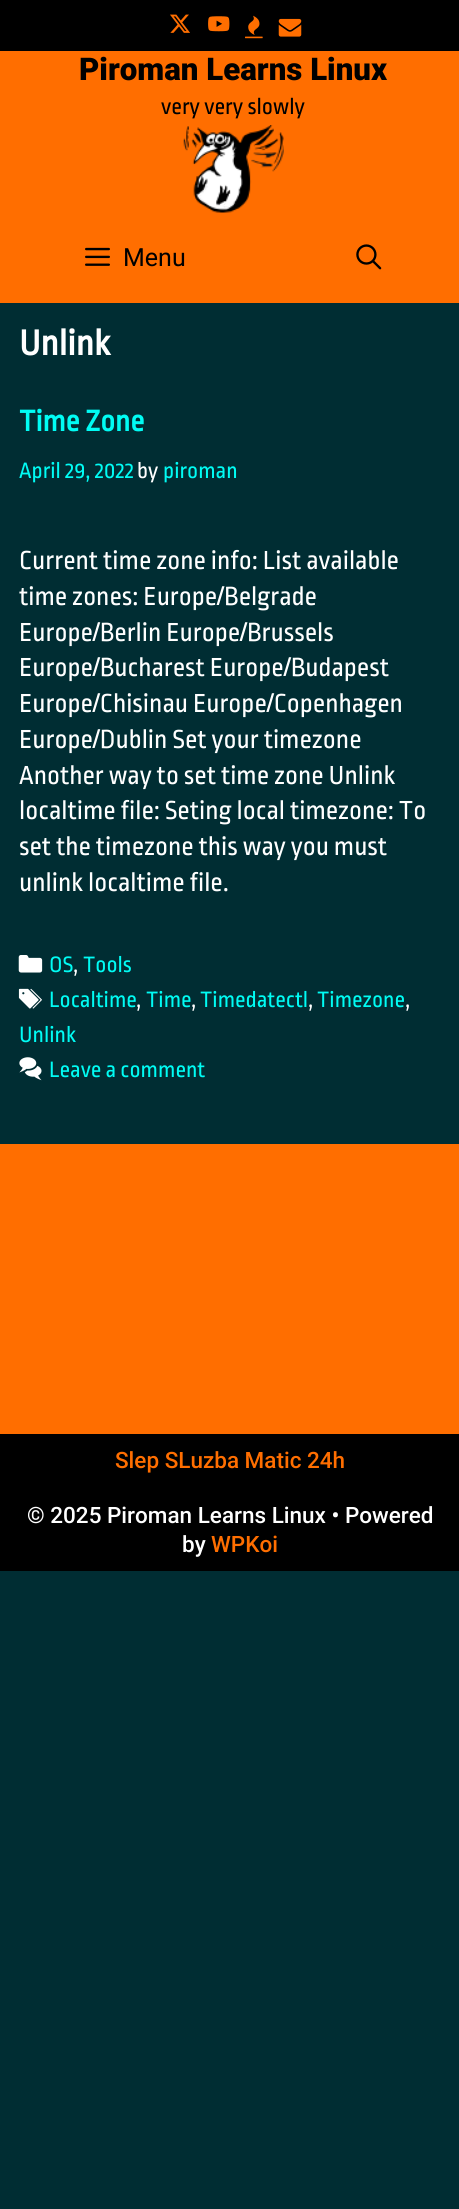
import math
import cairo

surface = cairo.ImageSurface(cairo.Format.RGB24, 459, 2209)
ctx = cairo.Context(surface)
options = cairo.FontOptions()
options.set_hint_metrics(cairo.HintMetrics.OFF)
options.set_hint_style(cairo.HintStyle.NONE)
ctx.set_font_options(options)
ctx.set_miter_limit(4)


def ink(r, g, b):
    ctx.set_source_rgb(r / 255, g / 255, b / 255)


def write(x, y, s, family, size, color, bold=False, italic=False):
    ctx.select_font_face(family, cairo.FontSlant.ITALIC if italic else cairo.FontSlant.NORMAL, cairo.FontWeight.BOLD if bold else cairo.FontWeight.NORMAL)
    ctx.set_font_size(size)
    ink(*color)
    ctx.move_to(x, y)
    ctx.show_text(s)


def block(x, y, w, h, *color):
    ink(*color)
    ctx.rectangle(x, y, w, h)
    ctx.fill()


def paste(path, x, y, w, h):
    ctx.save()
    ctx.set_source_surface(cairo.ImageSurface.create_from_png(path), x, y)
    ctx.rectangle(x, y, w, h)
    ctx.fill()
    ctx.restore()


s1 = dict(family="Roboto Black", size=31.25, color=(0, 0, 0))
s2 = dict(family="Ropa Sans", size=23.75, color=(0, 0, 0))
s3 = dict(family="Roboto", size=25, color=(0, 0, 0))
s4 = dict(family="Ropa Sans", size=37.5, color=(255, 255, 255), bold=True)
s5 = dict(family="Ropa Sans", size=31.25, color=(0, 252, 244), bold=True)
s6 = dict(family="Ropa Sans", size=23.5, color=(0, 252, 244))
s7 = dict(family="Ropa Sans", size=23.5, color=(255, 255, 255))
s8 = dict(family="Ropa Sans", size=27.5, color=(255, 255, 255))
s9 = dict(family="Roboto Medium", size=22.5, color=(255, 110, 0))
s10 = dict(family="Roboto Medium", size=22.5, color=(255, 255, 255))

ink(0, 45, 51)
ctx.paint()
block(0, 0, 459, 51, 0, 0, 0)
paste("pic1.png", 170, 14, 20, 19)
paste("pic2.png", 208, 16, 22, 16)
paste("pic3.png", 245, 15, 18, 24)
paste("pic4.png", 278, 18, 24, 19)
block(0, 51, 459, 252, 255, 110, 0)
write(79, 80, "Piroman Learns Linux", **s1)
write(161, 114, "very very slowly", **s2)
paste("pic5.png", 183, 125, 101, 88)
paste("pic6.png", 85, 247, 25, 19)
write(123, 266, "Menu", **s3)
paste("pic7.png", 356, 244, 26, 26)
write(19, 355, "Unlink", **s4)
write(19, 431, "Time Zone", **s5)
write(19, 478, "April 29, 2022", **s6)
write(137, 478, "by", **s7)
write(163, 478, "piroman", **s6)
write(19, 569, "Current time zone info: List available", **s8)
write(19, 605, "time zones: Europe/Belgrade", **s8)
write(19, 641, "Europe/Berlin Europe/Brussels", **s8)
write(19, 676, "Europe/Bucharest Europe/Budapest", **s8)
write(19, 712, "Europe/Chisinau Europe/Copenhagen", **s8)
write(19, 748, "Europe/Dublin Set your timezone", **s8)
write(19, 784, "Another way to set time zone Unlink", **s8)
write(19, 819, "localtime file: Seting local timezone: To", **s8)
write(19, 855, "set the timezone this way you must", **s8)
write(19, 891, "unlink localtime file.", **s8)
paste("pic8.png", 18, 955, 25, 18)
write(49, 972, "OS", **s6)
write(73, 972, ",", **s7)
write(83, 972, "Tools", **s6)
paste("pic9.png", 18, 988, 24, 21)
write(49, 1007, "Localtime", **s6)
write(136, 1007, ",", **s7)
write(146, 1007, "Time", **s6)
write(191, 1007, ",", **s7)
write(200, 1007, "Timedatectl", **s6)
write(308, 1007, ",", **s7)
write(317, 1007, "Timezone", **s6)
write(405, 1007, ",", **s7)
write(19, 1042, "Unlink", **s6)
paste("pic10.png", 19, 1057, 23, 24)
write(49, 1077, "Leave a comment", **s6)
block(0, 1144, 459, 290, 255, 110, 0)
block(0, 1434, 459, 137, 0, 0, 0)
write(115, 1468, "Slep SLuzba Matic 24h", **s9)
write(27, 1523, "© 2025 Piroman Learns Linux • Powered", **s10)
write(182, 1552, "by", **s10)
write(211, 1552, "WPKoi", **s9)
surface.write_to_png("screenshot.png")
